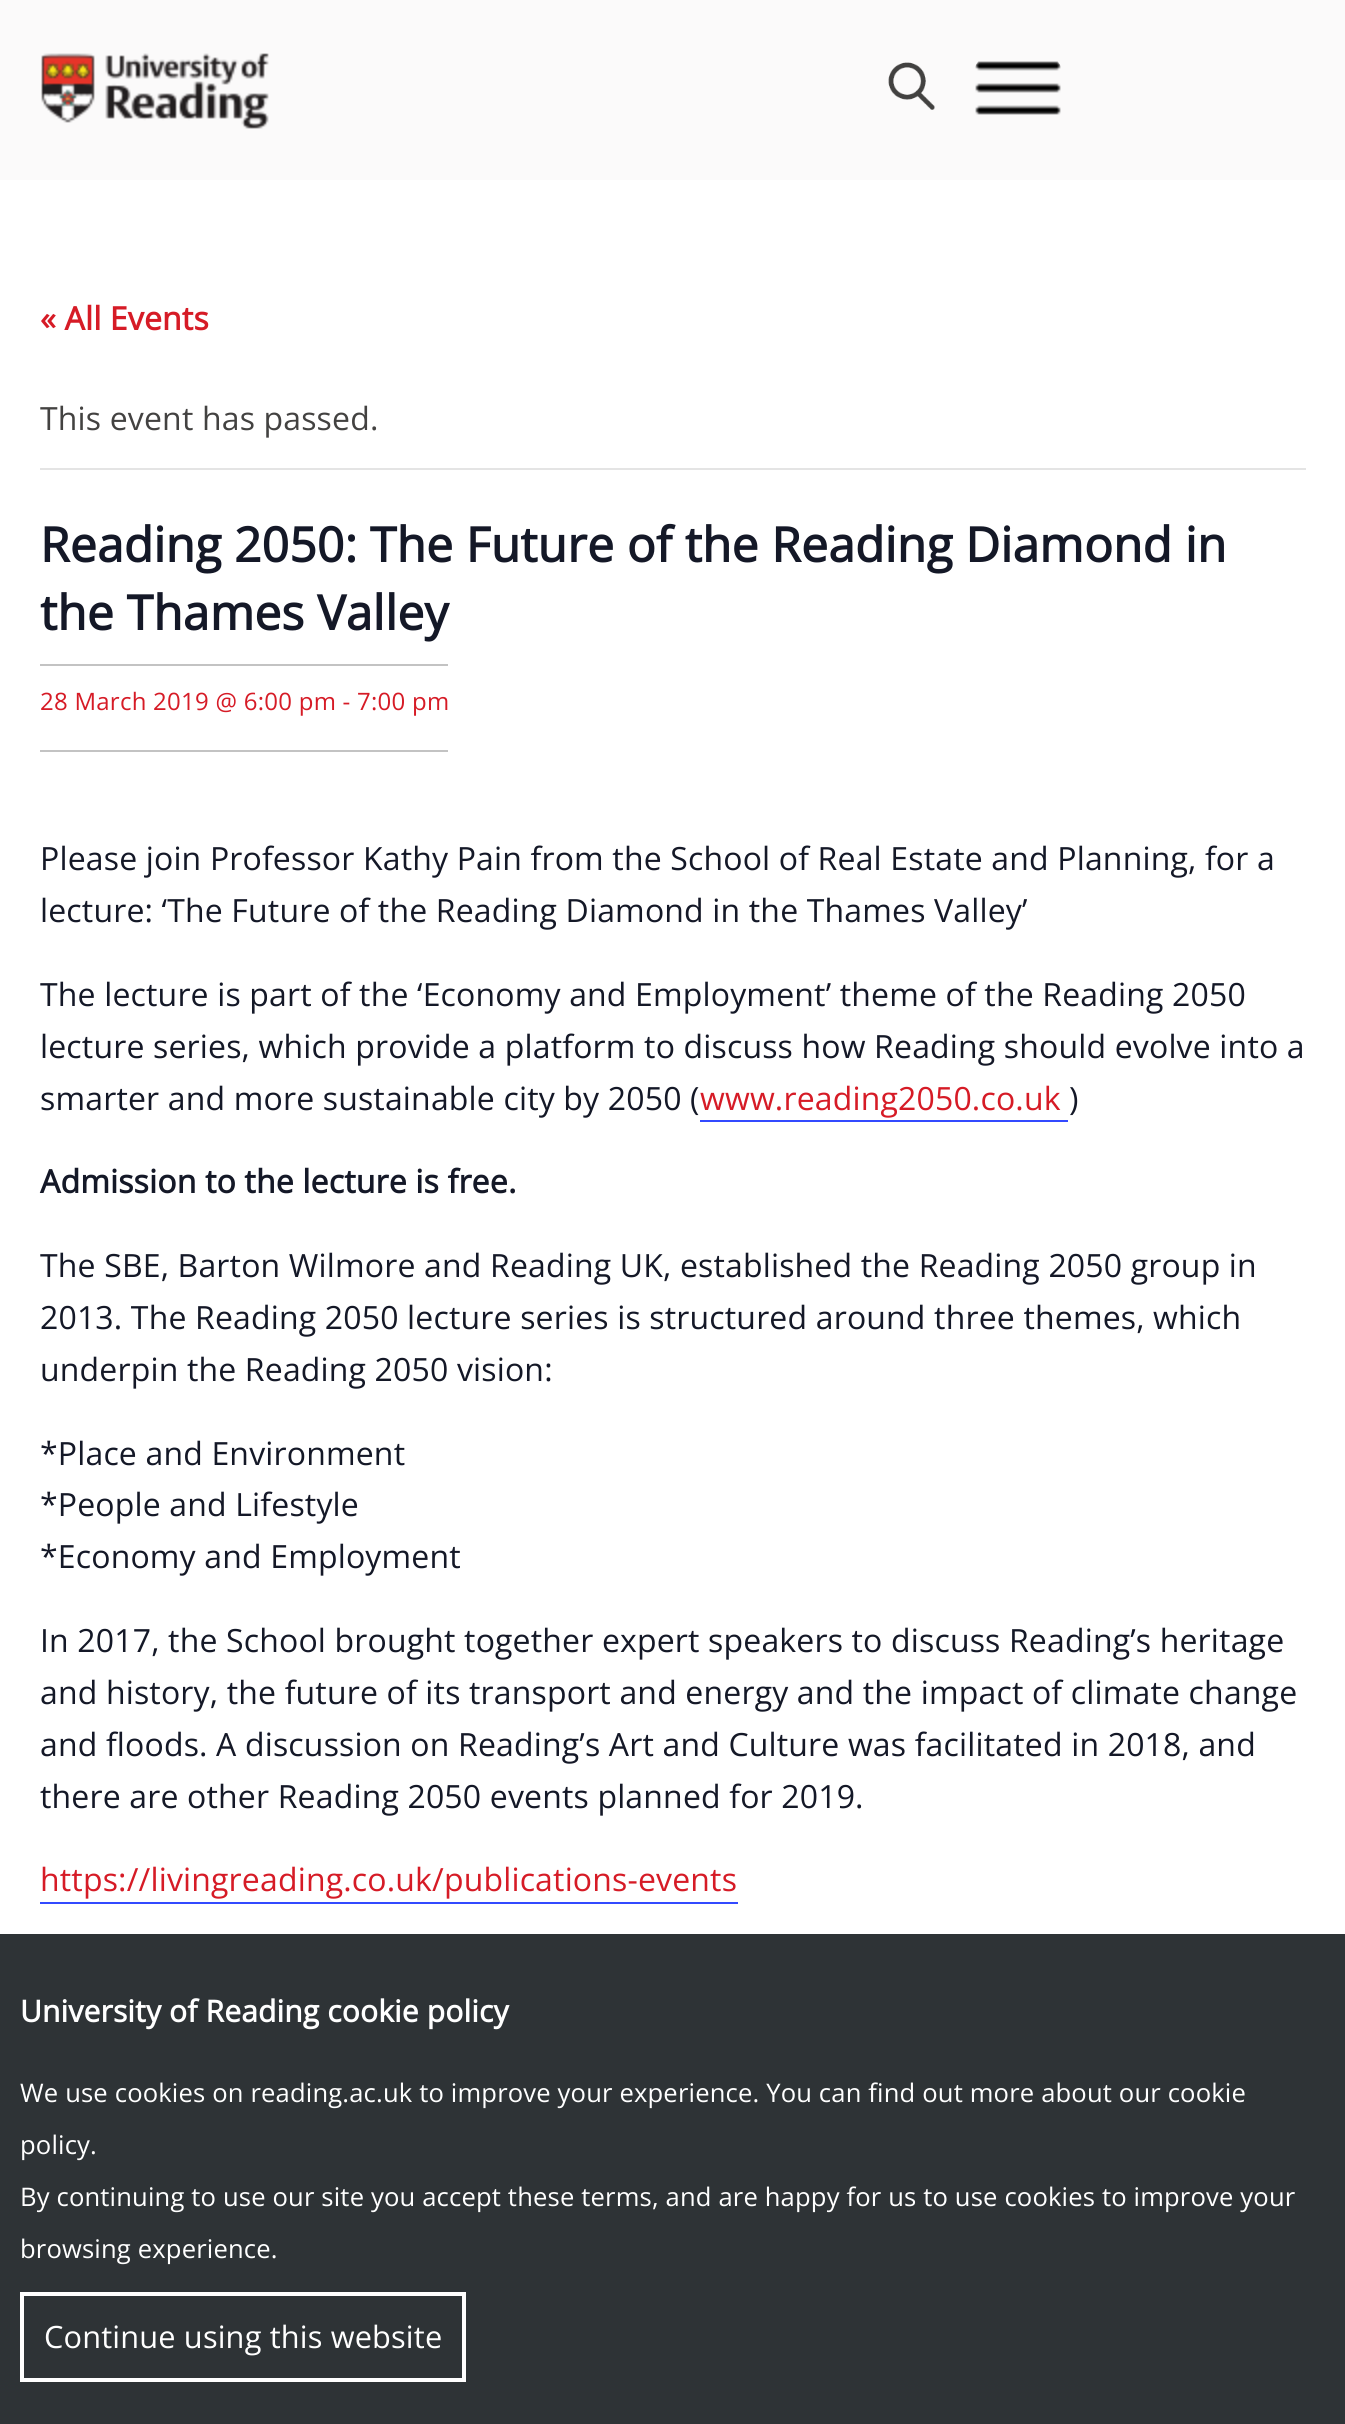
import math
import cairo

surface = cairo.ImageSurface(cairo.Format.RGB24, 1345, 2424)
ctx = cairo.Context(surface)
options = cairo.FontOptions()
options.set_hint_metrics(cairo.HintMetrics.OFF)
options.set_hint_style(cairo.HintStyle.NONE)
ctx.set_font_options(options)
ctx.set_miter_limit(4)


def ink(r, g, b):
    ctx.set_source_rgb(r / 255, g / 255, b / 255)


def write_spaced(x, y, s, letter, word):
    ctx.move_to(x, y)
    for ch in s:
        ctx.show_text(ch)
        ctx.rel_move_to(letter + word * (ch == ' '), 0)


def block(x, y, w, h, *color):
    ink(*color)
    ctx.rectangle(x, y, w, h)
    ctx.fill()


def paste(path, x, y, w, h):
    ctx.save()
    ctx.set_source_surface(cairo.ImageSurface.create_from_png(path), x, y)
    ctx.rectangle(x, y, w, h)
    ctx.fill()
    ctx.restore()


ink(255, 255, 255)
ctx.paint()
block(0, 0, 1345, 180, 251, 250, 250)
paste("pic1.png", 41, 53, 228, 76)
paste("pic2.png", 888, 62, 47, 48)
paste("pic3.png", 975, 61, 86, 54)
ctx.select_font_face("Open Sans", cairo.FontSlant.NORMAL, cairo.FontWeight.BOLD)
ctx.set_font_size(32)
ink(214, 27, 38)
write_spaced(40, 330, "« All Events", 0.16, 0)
block(40, 468, 1266, 2, 228, 228, 228)
ctx.select_font_face("Open Sans")
ink(67, 66, 65)
write_spaced(40, 430, "This event has passed.", 0.16, 0)
ctx.select_font_face("Open Sans", cairo.FontSlant.NORMAL, cairo.FontWeight.BOLD)
ctx.set_font_size(48)
ink(20, 24, 39)
write_spaced(40, 562, "Reading 2050: The Future of the Reading Diamond in", 0.16, 0)
write_spaced(40, 630, "the Thames Valley", 0.16, 0)
block(40, 664, 408, 2, 195, 195, 195)
block(40, 750, 408, 2, 195, 195, 195)
ctx.select_font_face("Open Sans")
ctx.set_font_size(24)
ink(214, 27, 38)
write_spaced(40, 710, "28 March 2019 @ 6:00 pm - 7:00 pm", 0.25, 0)
ctx.set_font_size(32)
ink(20, 24, 39)
write_spaced(40, 870, "Please join Professor Kathy Pain from the School of Real Estate and Planning, for a", 0.16, 0)
write_spaced(40, 922, "lecture: ‘The Future of the Reading Diamond in the Thames Valley’", 0.16, 0)
write_spaced(40, 1006, "The lecture is part of the ‘Economy and Employment’ theme of the Reading 2050", 0.16, 0)
write_spaced(40, 1058, "lecture series, which provide a platform to discuss how Reading should evolve into a", 0.16, 0)
write_spaced(40, 1110, "smarter and more sustainable city by 2050 (", 0.16, 0)
ink(214, 27, 38)
write_spaced(700, 1110, "www.reading2050.co.uk", 0.16, 0)
block(700, 1120, 368, 2, 51, 74, 255)
ink(20, 24, 39)
write_spaced(1069, 1110, ")", 0.16, 0)
ctx.select_font_face("Open Sans", cairo.FontSlant.NORMAL, cairo.FontWeight.BOLD)
write_spaced(40, 1193, "Admission to the lecture is free.", 0.16, 0)
ctx.select_font_face("Open Sans")
write_spaced(40, 1277, "The SBE, Barton Wilmore and Reading UK, established the Reading 2050 group in", 0.16, 0)
write_spaced(40, 1329, "2013. The Reading 2050 lecture series is structured around three themes, which", 0.16, 0)
write_spaced(40, 1381, "underpin the Reading 2050 vision:", 0.16, 0)
write_spaced(40, 1465, "*Place and Environment", 0.16, 0)
write_spaced(40, 1516, "*People and Lifestyle", 0.16, 0)
write_spaced(40, 1568, "*Economy and Employment", 0.16, 0)
write_spaced(40, 1652, "In 2017, the School brought together expert speakers to discuss Reading’s heritage", 0.16, 0)
write_spaced(40, 1704, "and history, the future of its transport and energy and the impact of climate change", 0.16, 0)
write_spaced(40, 1756, "and floods. A discussion on Reading’s Art and Culture was facilitated in 2018, and", 0.16, 0)
write_spaced(40, 1808, "there are other Reading 2050 events planned for 2019.", 0.16, 0)
ink(214, 27, 38)
write_spaced(40, 1891, "https://livingreading.co.uk/publications-events", 0.16, 0)
block(40, 1902, 698, 2, 51, 74, 255)
block(0, 1934, 1345, 490, 46, 51, 54)
ctx.select_font_face("Open Sans", cairo.FontSlant.NORMAL, cairo.FontWeight.BOLD)
ctx.set_font_size(30)
ink(255, 255, 255)
write_spaced(20, 2022, "University of Reading cookie policy", 0.16, 0)
ctx.select_font_face("Open Sans")
ctx.set_font_size(25.6)
write_spaced(20, 2102, "We use cookies on reading.ac.uk to improve your experience. You can find out more about our cookie", 0.16, 0)
write_spaced(20, 2154, "policy.", 0.16, 0)
write_spaced(20, 2206, "By continuing to use our site you accept these terms, and are happy for us to use cookies to improve your", 0.16, 0)
write_spaced(20, 2258, "browsing experience.", 0.16, 0)
ctx.rectangle(22, 2294, 442, 86)
ctx.set_line_width(4)
ctx.stroke()
ctx.set_font_size(30.75)
write_spaced(44, 2348, "Continue using this website", 0.16, 0)
surface.write_to_png("screenshot.png")
